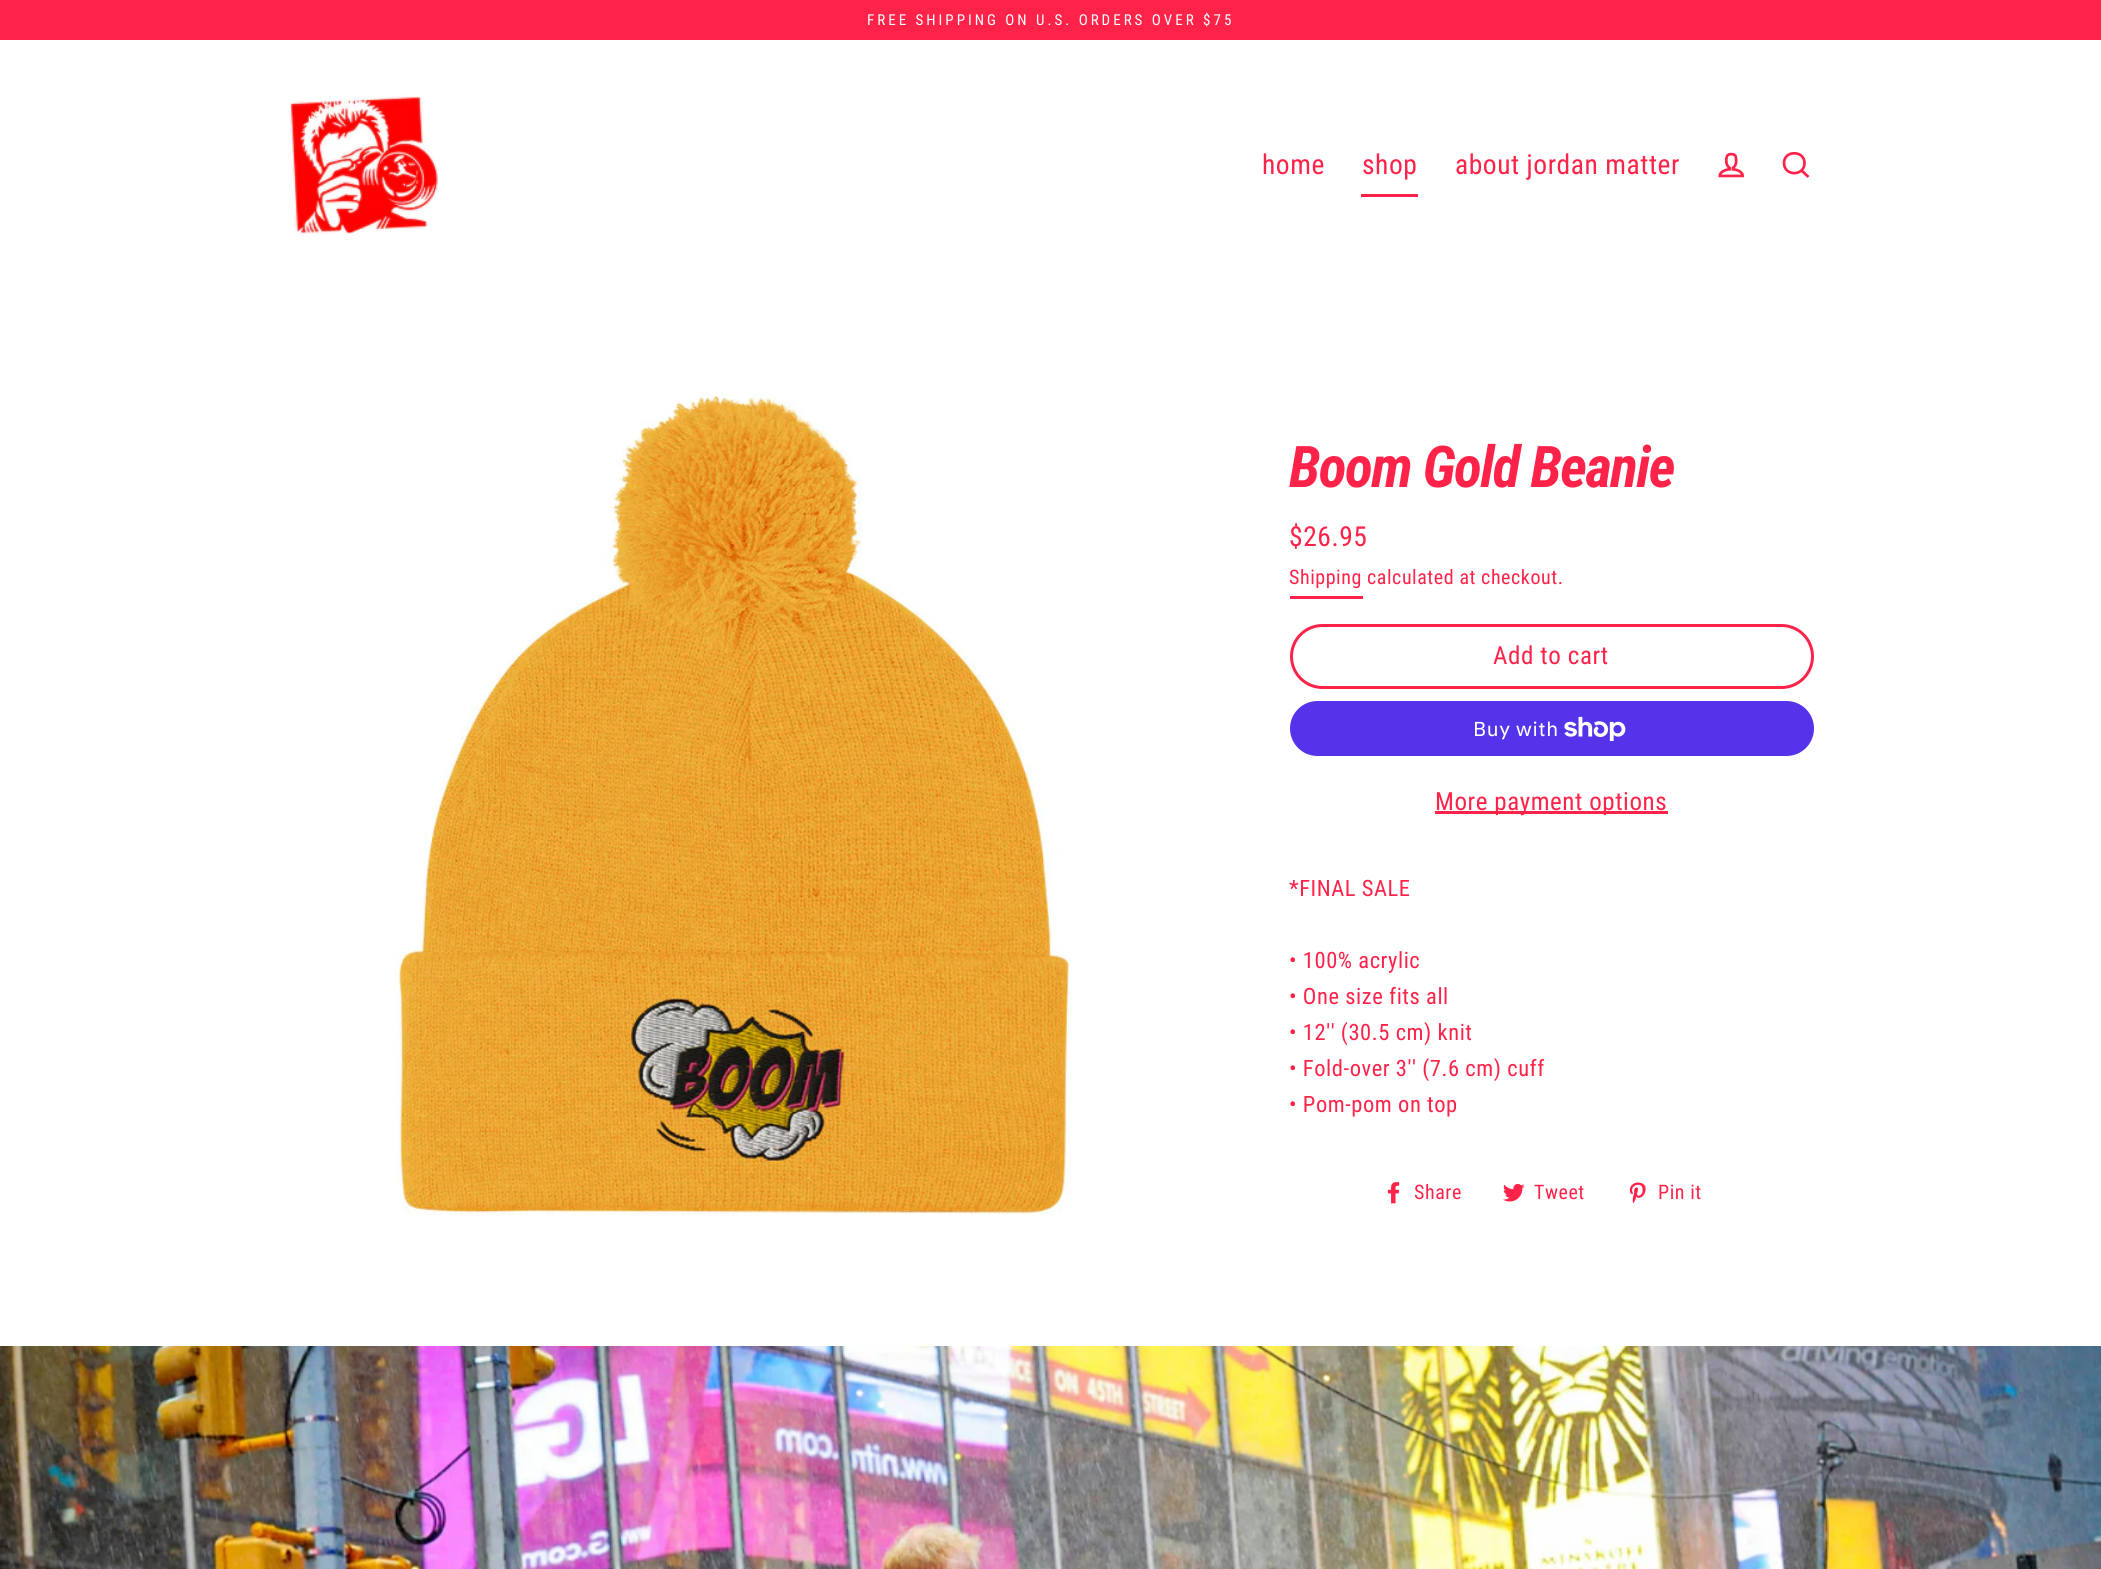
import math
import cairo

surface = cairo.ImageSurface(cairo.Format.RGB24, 2101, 1569)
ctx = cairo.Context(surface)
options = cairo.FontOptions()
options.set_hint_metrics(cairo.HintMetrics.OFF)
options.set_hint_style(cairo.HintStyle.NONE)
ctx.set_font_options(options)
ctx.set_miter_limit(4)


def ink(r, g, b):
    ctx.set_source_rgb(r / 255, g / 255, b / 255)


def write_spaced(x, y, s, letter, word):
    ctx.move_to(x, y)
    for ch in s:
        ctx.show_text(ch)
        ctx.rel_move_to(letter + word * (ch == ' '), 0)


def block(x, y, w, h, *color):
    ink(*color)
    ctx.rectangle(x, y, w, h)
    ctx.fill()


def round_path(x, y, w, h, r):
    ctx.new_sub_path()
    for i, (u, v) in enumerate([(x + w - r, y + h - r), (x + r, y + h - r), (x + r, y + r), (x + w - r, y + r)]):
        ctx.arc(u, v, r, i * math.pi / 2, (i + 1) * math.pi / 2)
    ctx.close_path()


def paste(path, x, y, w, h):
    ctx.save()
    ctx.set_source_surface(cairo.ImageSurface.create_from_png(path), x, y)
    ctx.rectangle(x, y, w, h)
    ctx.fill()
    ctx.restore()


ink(255, 255, 255)
ctx.paint()
block(0, 0, 2101, 40, 255, 34, 73)
ctx.select_font_face("Roboto Condensed")
ctx.set_font_size(15)
ink(255, 255, 255)
write_spaced(867, 25, "FREE SHIPPING ON U.S. ORDERS OVER $75", 3, 0)
paste("pic1.png", 289, 95, 150, 140)
ctx.set_font_size(27.5)
ink(255, 34, 73)
write_spaced(1262, 174, "home", 0.55, 0)
write_spaced(1362, 174, "shop", 0.55, 0)
block(1361, 194, 57, 3, 255, 34, 73)
write_spaced(1455, 174, "about jordan matter", 0.55, 0)
paste("pic2.png", 1718, 152, 26, 26)
ctx.new_path()
ctx.move_to(1804.5, 163)
ctx.curve_to(1804.5, 176.5, 1784, 176.5, 1784, 163)
ctx.curve_to(1784, 150, 1804.5, 150, 1804.5, 163)
ctx.close_path()
ctx.move_to(1808.5, 177)
ctx.line_to(1801.5, 170.5)
ctx.set_line_width(2.7)
ctx.stroke()
paste("pic3.png", 394, 392, 678, 823)
ctx.select_font_face("Roboto Condensed", cairo.FontSlant.ITALIC, cairo.FontWeight.BOLD)
ctx.set_font_size(57.5)
write_spaced(1289, 487, "Boom Gold Beanie", -1.5, 0)
ctx.select_font_face("Roboto Condensed")
ctx.set_font_size(27.5)
write_spaced(1289, 546, "$26.95", 0.55, 0)
block(1290, 596, 73, 3, 255, 34, 73)
ctx.set_font_size(20)
write_spaced(1289, 584, "Shipping calculated at checkout.", 0.55, 0)
round_path(1291.5, 625.5, 521, 62, 31)
ctx.set_line_width(3)
ctx.stroke()
ctx.set_font_size(25)
write_spaced(1493, 664, "Add to cart", 0.6, 0)
ink(84, 51, 235)
round_path(1290, 701, 524, 55, 27.5)
ctx.fill()
ctx.select_font_face("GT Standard")
ctx.set_font_size(20)
ink(255, 255, 255)
write_spaced(1473, 736, "Buy with", 0.55, 0)
paste("pic4.png", 1564, 716, 62, 25)
block(1435, 811, 233, 3, 255, 34, 73)
ctx.select_font_face("Roboto Condensed")
ctx.set_font_size(25)
write_spaced(1435, 810, "More payment options", 0.55, 0)
ctx.set_font_size(22.5)
write_spaced(1289, 896, "*FINAL SALE", 0.55, 0)
write_spaced(1289, 968, "• 100% acrylic", 0.55, 0)
write_spaced(1289, 1004, "• One size fits all", 0.55, 0)
write_spaced(1289, 1040, "• 12'' (30.5 cm) knit", 0.55, 0)
write_spaced(1289, 1076, "• Fold-over 3'' (7.6 cm) cuff", 0.55, 0)
write_spaced(1289, 1112, "• Pom-pom on top", 0.55, 0)
paste("pic5.png", 1387, 1182, 13, 22)
ctx.set_font_size(20)
write_spaced(1414, 1199, "Share", 0.55, 0)
paste("pic6.png", 1503, 1183, 22, 19)
write_spaced(1534, 1199, "Tweet", 0.55, 0)
paste("pic7.png", 1629, 1182, 17, 22)
write_spaced(1658, 1199, "Pin it", 0.55, 0)
paste("pic8.png", 0, 1346, 2101, 223)
surface.write_to_png("screenshot.png")
